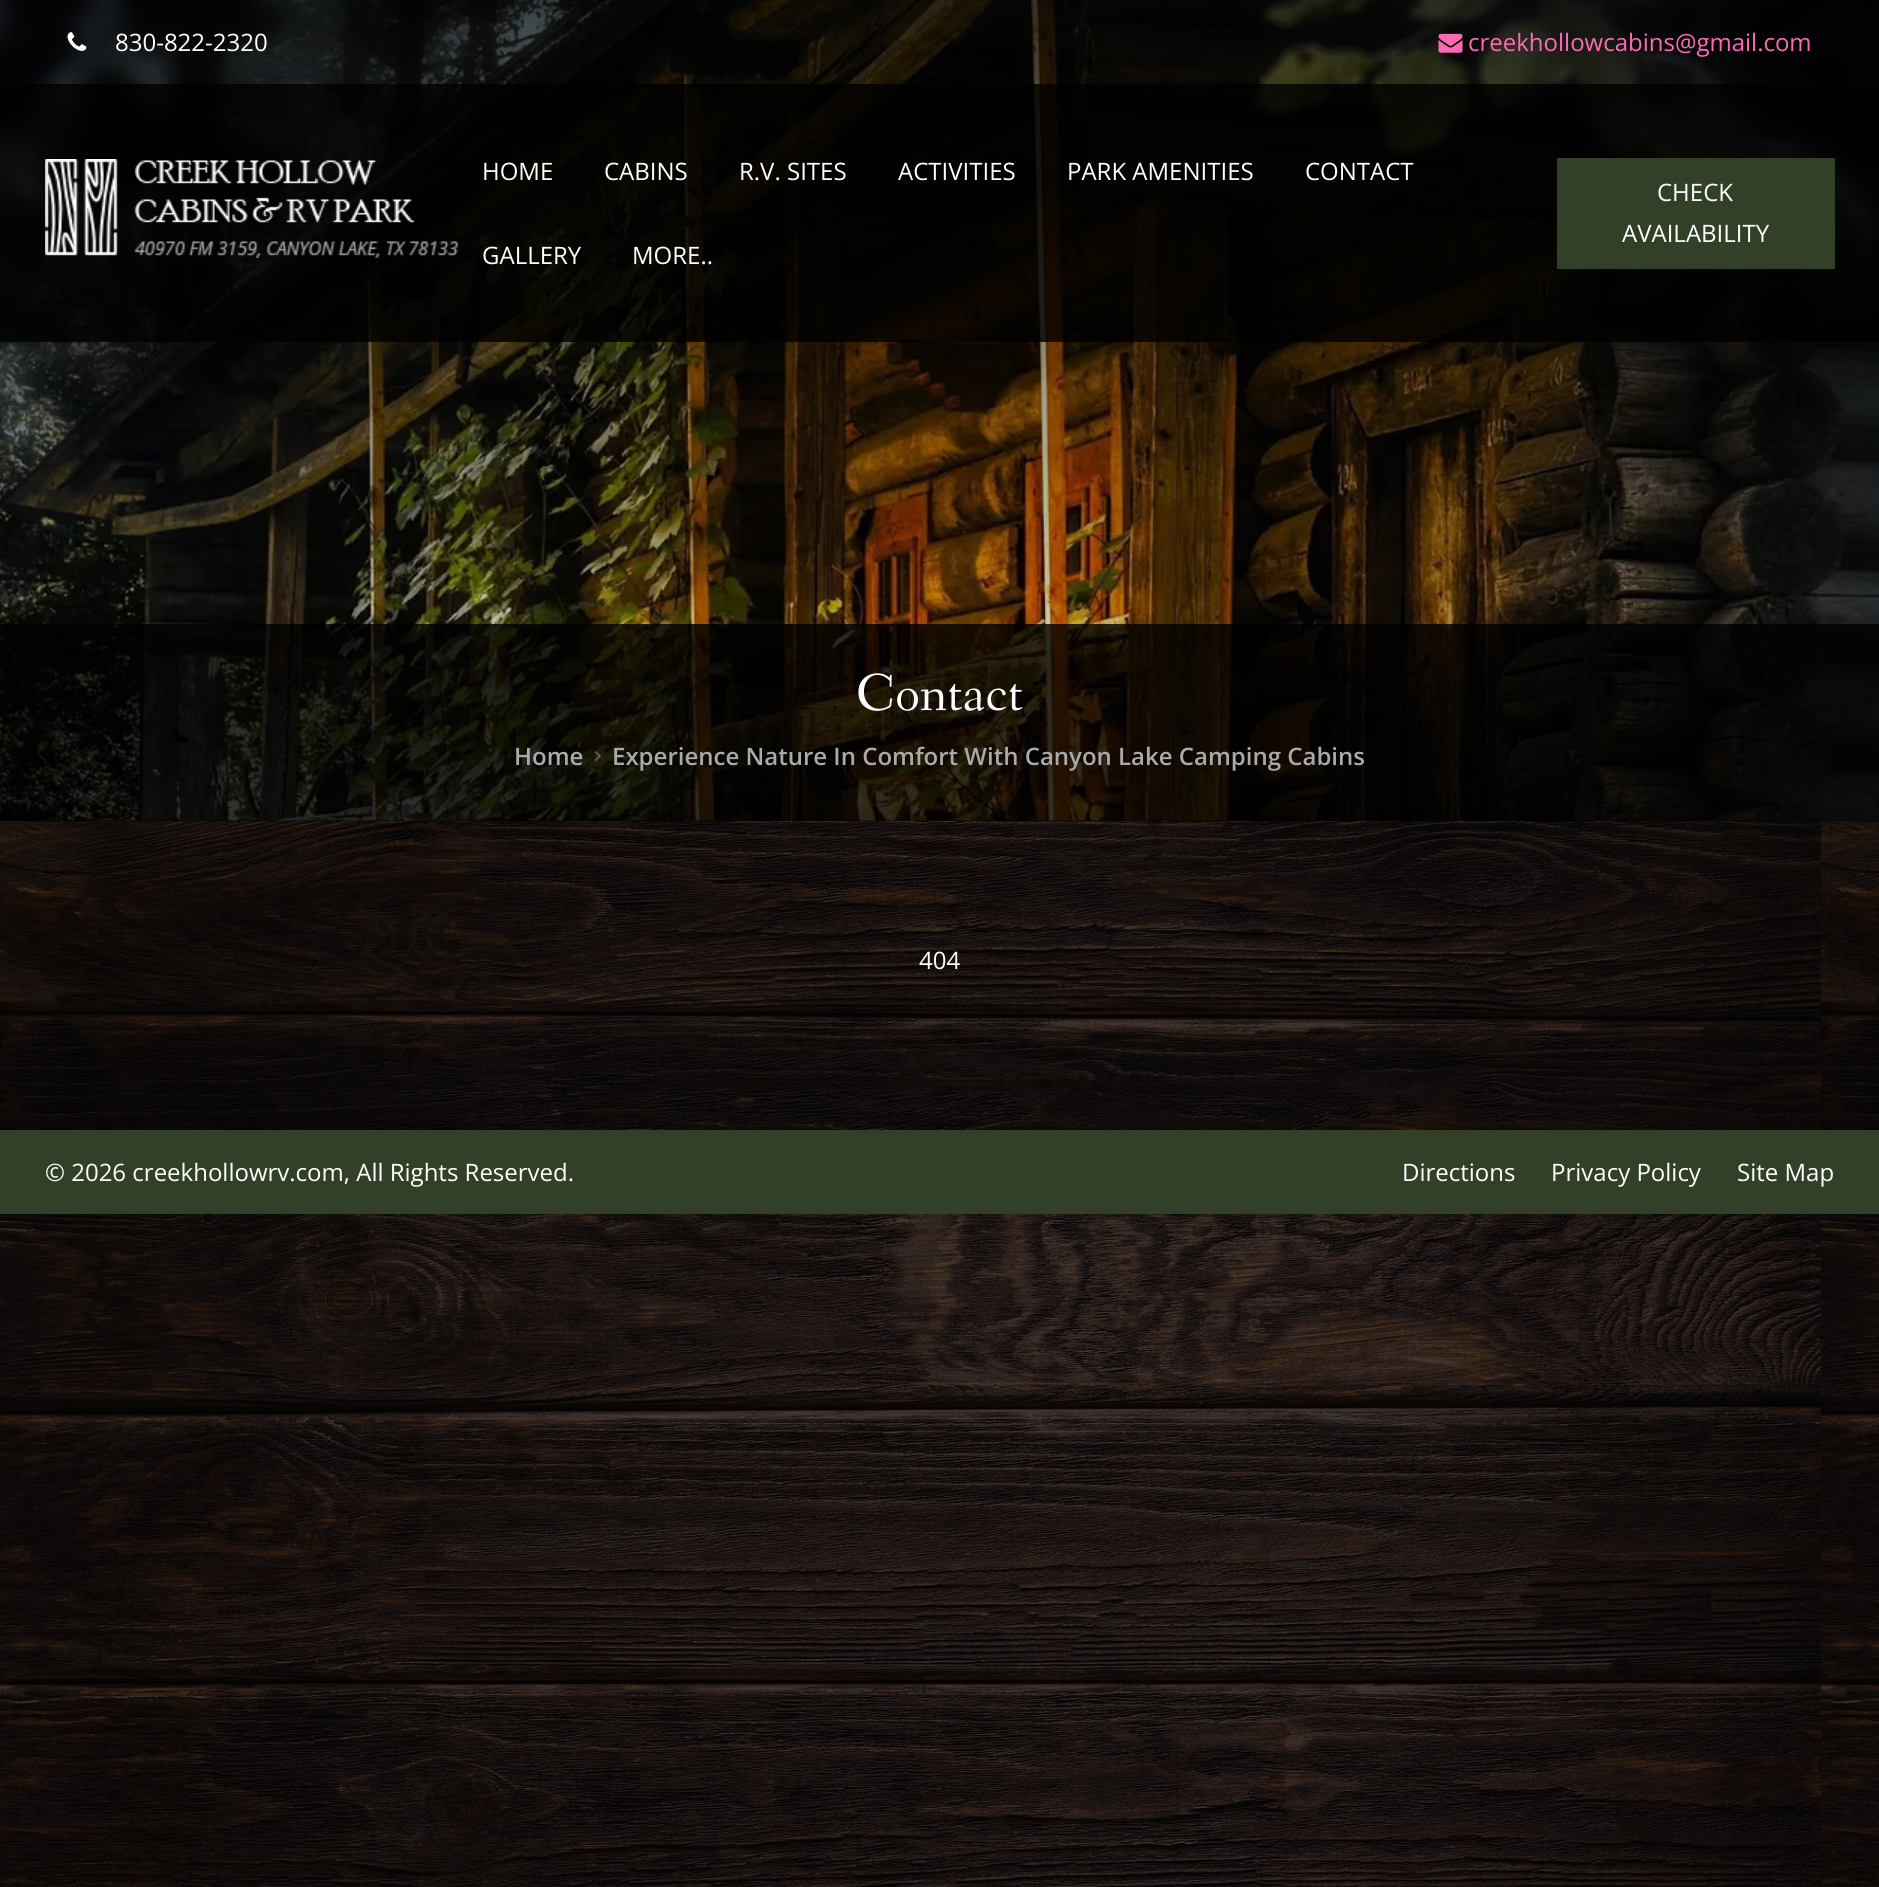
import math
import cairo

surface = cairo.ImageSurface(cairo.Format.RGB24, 1879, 1887)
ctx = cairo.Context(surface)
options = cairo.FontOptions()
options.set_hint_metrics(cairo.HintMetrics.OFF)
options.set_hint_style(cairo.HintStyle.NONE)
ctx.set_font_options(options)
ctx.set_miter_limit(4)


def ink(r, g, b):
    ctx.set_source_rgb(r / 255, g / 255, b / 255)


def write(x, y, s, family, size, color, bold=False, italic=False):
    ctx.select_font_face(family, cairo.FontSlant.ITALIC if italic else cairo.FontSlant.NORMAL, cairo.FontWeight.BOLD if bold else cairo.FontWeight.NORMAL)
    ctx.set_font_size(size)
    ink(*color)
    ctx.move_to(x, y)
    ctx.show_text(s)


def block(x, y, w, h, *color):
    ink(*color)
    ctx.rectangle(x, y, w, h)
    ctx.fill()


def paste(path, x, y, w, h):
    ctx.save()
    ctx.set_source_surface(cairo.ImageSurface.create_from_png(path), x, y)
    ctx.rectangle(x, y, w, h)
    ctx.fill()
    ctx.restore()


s1 = dict(family="Open Sans", size=24, color=(255, 255, 255))
s2 = dict(family="Open Sans", size=24, color=(255, 105, 180))
s3 = dict(family="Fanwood", size=54, color=(255, 255, 255))
s4 = dict(family="Open Sans SemiBold", size=24, color=(170, 170, 170))

ink(255, 255, 255)
ctx.paint()
paste("pic1.png", 0, 820, 1879, 1067)
paste("pic5.png", 0, 0, 1879, 821)
gradient = cairo.LinearGradient(940, 821, 940, 0)
gradient.add_color_stop_rgba(0, 0, 0, 0, 0)
gradient.add_color_stop_rgba(1, 0, 0, 0, 0.7)
ctx.set_source(gradient)
ctx.rectangle(0, 0, 1879, 796)
ctx.fill()
paste("pic2.png", 67, 32, 20, 19)
write(115, 51, "830-822-2320", **s1)
paste("pic3.png", 1438, 33, 25, 20)
write(1468, 51, "creekhollowcabins@gmail.com", **s2)
ctx.set_source_rgba(0, 0, 0, 0.8)
ctx.rectangle(0, 84, 1879, 258)
ctx.fill()
paste("pic4.png", 45, 159, 414, 99)
write(482, 180, "HOME", **s1)
write(604, 180, "CABINS", **s1)
write(739, 180, "R.V. SITES", **s1)
write(898, 180, "ACTIVITIES", **s1)
write(1067, 180, "PARK AMENITIES", **s1)
write(1305, 180, "CONTACT", **s1)
write(482, 264, "GALLERY", **s1)
write(632, 264, "MORE..", **s1)
block(1557, 158, 278, 111, 49, 64, 39)
write(1657, 201, "CHECK", **s1)
write(1622, 242, "AVAILABILITY", **s1)
ctx.set_source_rgba(0, 0, 0, 0.8)
ctx.rectangle(0, 624, 1879, 197)
ctx.fill()
write(856, 710, "Contact", **s3)
paste("pic6.png", 594, 750, 8, 12)
write(514, 765, "Home", **s4)
write(612, 765, "Experience Nature In Comfort With Canyon Lake Camping Cabins", **s4)
write(919, 969, "404", **s1)
block(0, 1130, 1879, 84, 49, 64, 39)
write(45, 1181, "© 2026 creekhollowrv.com, All Rights Reserved.", **s1)
write(1402, 1181, "Directions", **s1)
write(1551, 1181, "Privacy Policy", **s1)
write(1737, 1181, "Site Map", **s1)
surface.write_to_png("screenshot.png")
